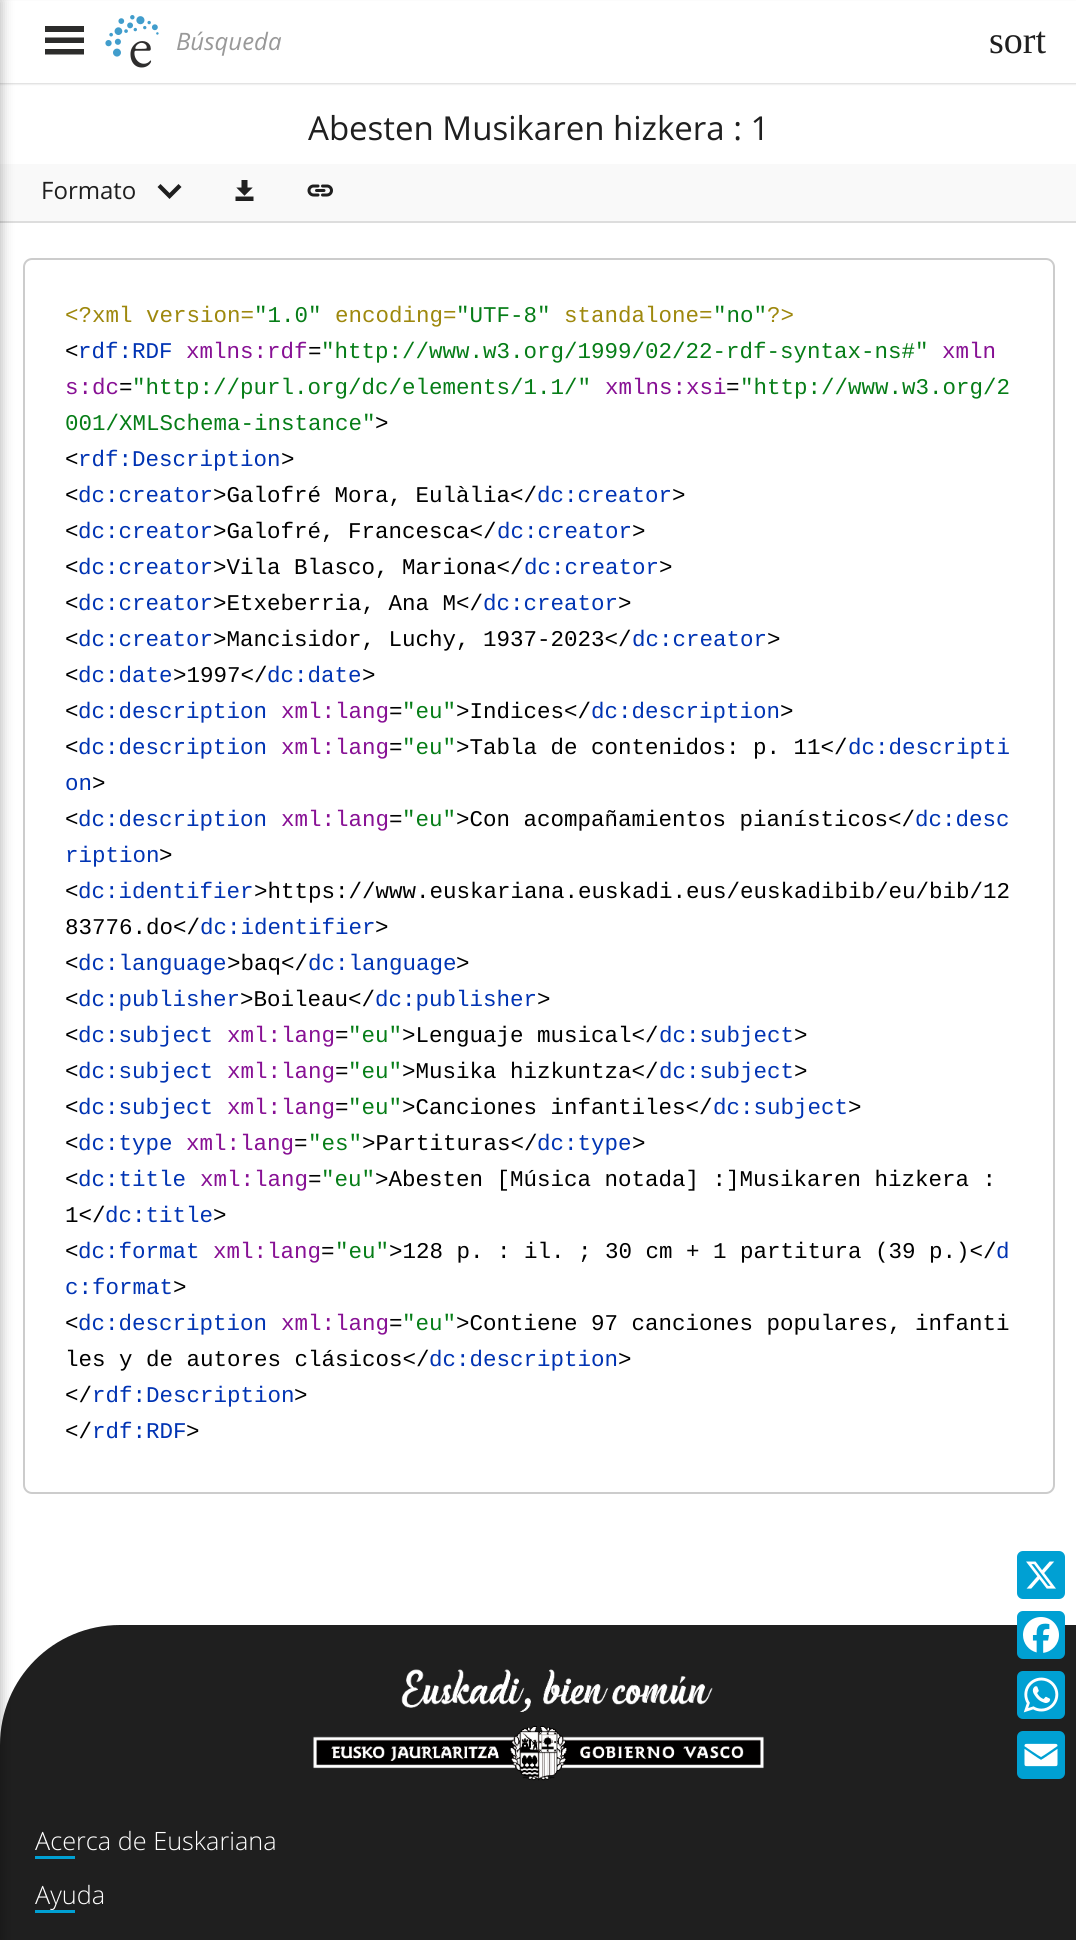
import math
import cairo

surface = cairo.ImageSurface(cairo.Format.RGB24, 1076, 1940)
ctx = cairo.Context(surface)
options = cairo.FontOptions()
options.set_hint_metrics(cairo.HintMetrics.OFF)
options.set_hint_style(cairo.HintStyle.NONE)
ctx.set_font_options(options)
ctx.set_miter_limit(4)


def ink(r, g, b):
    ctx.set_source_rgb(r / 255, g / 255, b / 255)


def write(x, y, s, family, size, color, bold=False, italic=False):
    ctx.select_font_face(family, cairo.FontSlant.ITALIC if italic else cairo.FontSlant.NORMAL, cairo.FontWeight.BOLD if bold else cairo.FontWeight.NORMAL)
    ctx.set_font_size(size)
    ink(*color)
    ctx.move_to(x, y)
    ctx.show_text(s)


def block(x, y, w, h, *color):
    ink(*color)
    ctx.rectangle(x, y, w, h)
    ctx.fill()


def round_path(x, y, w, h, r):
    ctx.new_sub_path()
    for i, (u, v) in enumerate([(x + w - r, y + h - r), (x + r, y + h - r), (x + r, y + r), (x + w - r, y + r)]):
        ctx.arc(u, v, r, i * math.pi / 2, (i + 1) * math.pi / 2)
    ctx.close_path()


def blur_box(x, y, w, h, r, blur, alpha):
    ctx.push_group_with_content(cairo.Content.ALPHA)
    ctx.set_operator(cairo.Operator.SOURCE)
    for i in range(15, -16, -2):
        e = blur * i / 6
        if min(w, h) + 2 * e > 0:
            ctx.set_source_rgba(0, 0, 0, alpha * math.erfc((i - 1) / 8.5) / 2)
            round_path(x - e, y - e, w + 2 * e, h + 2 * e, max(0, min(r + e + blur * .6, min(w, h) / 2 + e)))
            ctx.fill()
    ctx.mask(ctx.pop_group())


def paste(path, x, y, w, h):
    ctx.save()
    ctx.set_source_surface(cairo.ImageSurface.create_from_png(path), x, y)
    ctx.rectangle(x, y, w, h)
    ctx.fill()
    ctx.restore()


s1 = dict(family="Open Sans", size=24, color=(153, 153, 153), italic=True)
s2 = dict(family="Liberation Serif", size=38, color=(31, 31, 31))
s3 = dict(family="Open Sans", size=33, color=(31, 31, 31))
s4 = dict(family="Open Sans", size=24, color=(31, 31, 31))
s5 = dict(family="Liberation Mono", size=22.5, color=(158, 136, 13))
s6 = dict(family="Liberation Mono", size=22.5, color=(6, 125, 23))
s7 = dict(family="Liberation Mono", size=22.5, color=(0, 0, 0))
s8 = dict(family="Liberation Mono", size=22.5, color=(0, 51, 179))
s9 = dict(family="Liberation Mono", size=22.5, color=(135, 16, 148))
s10 = dict(family="Open Sans Light", size=25.25, color=(255, 255, 255))

ink(255, 255, 255)
ctx.paint()
ink(0, 0, 0)
blur_box(0, 2, 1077, 82, 0, 1, 0.16)
block(0, 1, 1076, 82, 255, 255, 255)
block(0, 164, 1076, 57, 249, 249, 249)
block(0, 221, 1076, 2, 221, 221, 221)
ink(31, 31, 31)
ctx.new_path()
ctx.move_to(120, 1625)
ctx.line_to(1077, 1625)
ctx.line_to(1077, 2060)
ctx.line_to(0, 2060)
ctx.line_to(0, 1745)
ctx.curve_to(0, 1678.5, 53.5, 1625, 120, 1625)
ctx.close_path()
ctx.fill()
ink(0, 0, 0)
blur_box(-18, 0, 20, 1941, 0, 6, 0.26)
ink(44, 44, 43)
ctx.new_path()
ctx.move_to(45, 26)
ctx.line_to(84, 26)
ctx.line_to(84, 32)
ctx.line_to(45, 32)
ctx.close_path()
ctx.move_to(45, 37.5)
ctx.line_to(84, 37.5)
ctx.line_to(84, 43)
ctx.line_to(45, 43)
ctx.close_path()
ctx.move_to(45, 49)
ctx.line_to(84, 49)
ctx.line_to(84, 54.5)
ctx.line_to(45, 54.5)
ctx.close_path()
ctx.fill()
paste("pic1.png", 105, 15, 54, 53)
write(176, 50, "Búsqueda", **s1)
write(989, 53, "sort", **s2)
write(308, 140, "Abesten Musikaren hizkera : 1", **s3)
write(41, 199, "Formato", **s4)
ctx.new_path()
ctx.move_to(181.5, 187)
ctx.line_to(178.5, 184)
ctx.line_to(169.5, 193)
ctx.line_to(160.5, 184)
ctx.line_to(157.5, 187)
ctx.line_to(169.5, 199)
ctx.close_path()
ctx.fill()
paste("pic2.png", 235, 180, 19, 21)
paste("pic3.png", 307, 184, 26, 13)
round_path(24, 259, 1030, 1234, 8)
ink(204, 204, 204)
ctx.stroke()
write(65, 322, "<?xml version=", **s5)
write(254, 322, "\"1.0\"", **s6)
write(335, 322, "encoding=", **s5)
write(456, 322, "\"UTF-8\"", **s6)
write(564, 322, "standalone=", **s5)
write(713, 322, "\"no\"", **s6)
write(767, 322, "?>", **s5)
write(65, 358, "<", **s7)
write(78, 358, "rdf:RDF", **s8)
write(186, 358, "xmlns:rdf", **s9)
write(308, 358, "=", **s7)
write(321, 358, "\"http://www.w3.org/1999/02/22-rdf-syntax-ns#\"", **s6)
write(942, 358, "xmln", **s9)
write(65, 394, "s:dc", **s9)
write(119, 394, "=", **s7)
write(132, 394, "\"http://purl.org/dc/elements/1.1/\"", **s6)
write(605, 394, "xmlns:xsi", **s9)
write(726, 394, "=", **s7)
write(740, 394, "\"http://www.w3.org/2", **s6)
write(65, 430, "001/XMLSchema-instance\"", **s6)
write(375, 430, ">", **s7)
write(65, 466, "<", **s7)
write(78, 466, "rdf:Description", **s8)
write(281, 466, ">", **s7)
write(65, 502, "<", **s7)
write(78, 502, "dc:creator", **s8)
write(213, 502, ">Galofré Mora, Eulàlia</", **s7)
write(537, 502, "dc:creator", **s8)
write(672, 502, ">", **s7)
write(65, 538, "<", **s7)
write(78, 538, "dc:creator", **s8)
write(213, 538, ">Galofré, Francesca</", **s7)
write(497, 538, "dc:creator", **s8)
write(632, 538, ">", **s7)
write(65, 574, "<", **s7)
write(78, 574, "dc:creator", **s8)
write(213, 574, ">Vila Blasco, Mariona</", **s7)
write(524, 574, "dc:creator", **s8)
write(659, 574, ">", **s7)
write(65, 610, "<", **s7)
write(78, 610, "dc:creator", **s8)
write(213, 610, ">Etxeberria, Ana M</", **s7)
write(483, 610, "dc:creator", **s8)
write(618, 610, ">", **s7)
write(65, 646, "<", **s7)
write(78, 646, "dc:creator", **s8)
write(213, 646, ">Mancisidor, Luchy, 1937-2023</", **s7)
write(632, 646, "dc:creator", **s8)
write(767, 646, ">", **s7)
write(65, 682, "<", **s7)
write(78, 682, "dc:date", **s8)
write(173, 682, ">1997</", **s7)
write(267, 682, "dc:date", **s8)
write(362, 682, ">", **s7)
write(65, 718, "<", **s7)
write(78, 718, "dc:description", **s8)
write(281, 718, "xml:lang", **s9)
write(389, 718, "=", **s7)
write(402, 718, "\"eu\"", **s6)
write(456, 718, ">Indices</", **s7)
write(591, 718, "dc:description", **s8)
write(780, 718, ">", **s7)
write(65, 754, "<", **s7)
write(78, 754, "dc:description", **s8)
write(281, 754, "xml:lang", **s9)
write(389, 754, "=", **s7)
write(402, 754, "\"eu\"", **s6)
write(456, 754, ">Tabla de contenidos: p. 11</", **s7)
write(848, 754, "dc:descripti", **s8)
write(65, 790, "on", **s8)
write(92, 790, ">", **s7)
write(65, 826, "<", **s7)
write(78, 826, "dc:description", **s8)
write(281, 826, "xml:lang", **s9)
write(389, 826, "=", **s7)
write(402, 826, "\"eu\"", **s6)
write(456, 826, ">Con acompañamientos pianísticos</", **s7)
write(915, 826, "dc:desc", **s8)
write(65, 862, "ription", **s8)
write(159, 862, ">", **s7)
write(65, 898, "<", **s7)
write(78, 898, "dc:identifier", **s8)
write(254, 898, ">https://www.euskariana.euskadi.eus/euskadibib/eu/bib/12", **s7)
write(65, 934, "83776.do</", **s7)
write(200, 934, "dc:identifier", **s8)
write(375, 934, ">", **s7)
write(65, 970, "<", **s7)
write(78, 970, "dc:language", **s8)
write(227, 970, ">baq</", **s7)
write(308, 970, "dc:language", **s8)
write(456, 970, ">", **s7)
write(65, 1006, "<", **s7)
write(78, 1006, "dc:publisher", **s8)
write(240, 1006, ">Boileau</", **s7)
write(375, 1006, "dc:publisher", **s8)
write(537, 1006, ">", **s7)
write(65, 1042, "<", **s7)
write(78, 1042, "dc:subject", **s8)
write(227, 1042, "xml:lang", **s9)
write(335, 1042, "=", **s7)
write(348, 1042, "\"eu\"", **s6)
write(402, 1042, ">Lenguaje musical</", **s7)
write(659, 1042, "dc:subject", **s8)
write(794, 1042, ">", **s7)
write(65, 1078, "<", **s7)
write(78, 1078, "dc:subject", **s8)
write(227, 1078, "xml:lang", **s9)
write(335, 1078, "=", **s7)
write(348, 1078, "\"eu\"", **s6)
write(402, 1078, ">Musika hizkuntza</", **s7)
write(659, 1078, "dc:subject", **s8)
write(794, 1078, ">", **s7)
write(65, 1114, "<", **s7)
write(78, 1114, "dc:subject", **s8)
write(227, 1114, "xml:lang", **s9)
write(335, 1114, "=", **s7)
write(348, 1114, "\"eu\"", **s6)
write(402, 1114, ">Canciones infantiles</", **s7)
write(713, 1114, "dc:subject", **s8)
write(848, 1114, ">", **s7)
write(65, 1150, "<", **s7)
write(78, 1150, "dc:type", **s8)
write(186, 1150, "xml:lang", **s9)
write(294, 1150, "=", **s7)
write(308, 1150, "\"es\"", **s6)
write(362, 1150, ">Partituras</", **s7)
write(537, 1150, "dc:type", **s8)
write(632, 1150, ">", **s7)
write(65, 1186, "<", **s7)
write(78, 1186, "dc:title", **s8)
write(200, 1186, "xml:lang", **s9)
write(308, 1186, "=", **s7)
write(321, 1186, "\"eu\"", **s6)
write(375, 1186, ">Abesten [Música notada] :]Musikaren hizkera :", **s7)
write(65, 1222, "1</", **s7)
write(105, 1222, "dc:title", **s8)
write(213, 1222, ">", **s7)
write(65, 1258, "<", **s7)
write(78, 1258, "dc:format", **s8)
write(213, 1258, "xml:lang", **s9)
write(321, 1258, "=", **s7)
write(335, 1258, "\"eu\"", **s6)
write(389, 1258, ">128 p. : il. ; 30 cm + 1 partitura (39 p.)</", **s7)
write(996, 1258, "d", **s8)
write(65, 1294, "c:format", **s8)
write(173, 1294, ">", **s7)
write(65, 1330, "<", **s7)
write(78, 1330, "dc:description", **s8)
write(281, 1330, "xml:lang", **s9)
write(389, 1330, "=", **s7)
write(402, 1330, "\"eu\"", **s6)
write(456, 1330, ">Contiene 97 canciones populares, infanti", **s7)
write(65, 1366, "les y de autores clásicos</", **s7)
write(429, 1366, "dc:description", **s8)
write(618, 1366, ">", **s7)
write(65, 1402, "</", **s7)
write(92, 1402, "rdf:Description", **s8)
write(294, 1402, ">", **s7)
write(65, 1438, "</", **s7)
write(92, 1438, "rdf:RDF", **s8)
write(186, 1438, ">", **s7)
ink(0, 160, 211)
round_path(1017, 1551, 48, 48, 6)
ctx.fill()
paste("pic4.png", 1026, 1561, 30, 28)
round_path(1017, 1611, 48, 48, 6)
ctx.fill()
paste("pic5.png", 1023, 1617, 36, 36)
round_path(1017, 1671, 48, 48, 6)
ctx.fill()
paste("pic6.png", 1023, 1677, 36, 36)
round_path(1017, 1731, 48, 48, 6)
ctx.fill()
paste("pic7.png", 1024, 1743, 34, 24)
paste("pic8.png", 313, 1669, 451, 112)
write(35, 1850, "Acerca de Euskariana", **s10)
block(35, 1856, 40, 3, 0, 160, 211)
write(35, 1904, "Ayuda", **s10)
block(35, 1910, 40, 3, 0, 160, 211)
surface.write_to_png("screenshot.png")
